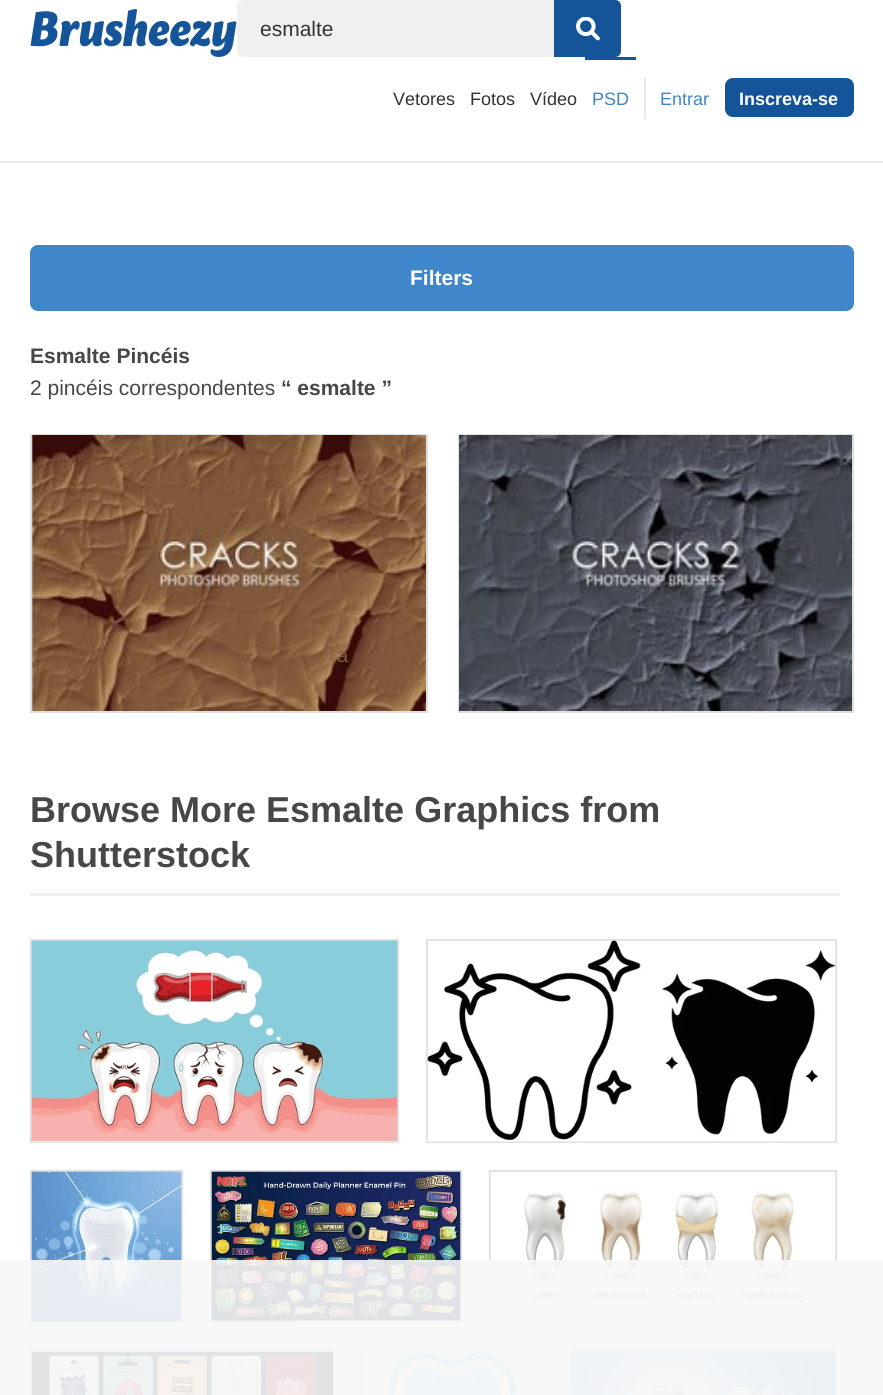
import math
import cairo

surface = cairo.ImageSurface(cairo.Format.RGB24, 883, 1395)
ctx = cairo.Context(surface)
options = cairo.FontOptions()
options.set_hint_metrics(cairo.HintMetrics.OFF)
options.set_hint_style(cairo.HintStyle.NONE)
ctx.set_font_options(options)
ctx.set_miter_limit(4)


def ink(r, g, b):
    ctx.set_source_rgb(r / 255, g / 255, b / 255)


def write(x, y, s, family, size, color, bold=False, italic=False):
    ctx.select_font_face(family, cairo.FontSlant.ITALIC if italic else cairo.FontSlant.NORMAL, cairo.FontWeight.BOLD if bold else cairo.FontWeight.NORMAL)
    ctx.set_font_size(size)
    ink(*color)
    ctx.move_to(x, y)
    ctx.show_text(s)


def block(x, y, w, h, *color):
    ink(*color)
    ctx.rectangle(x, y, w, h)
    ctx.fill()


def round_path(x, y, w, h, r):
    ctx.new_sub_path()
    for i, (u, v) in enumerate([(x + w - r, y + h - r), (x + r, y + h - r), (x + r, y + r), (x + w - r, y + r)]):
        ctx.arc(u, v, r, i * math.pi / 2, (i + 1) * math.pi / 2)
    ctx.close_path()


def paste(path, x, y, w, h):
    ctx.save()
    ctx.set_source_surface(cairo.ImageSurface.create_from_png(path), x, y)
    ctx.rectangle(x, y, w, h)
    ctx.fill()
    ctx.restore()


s1 = dict(family="Liberation Sans", size=21, color=(51, 51, 51))
s2 = dict(family="Liberation Sans", size=18, color=(51, 51, 51))
s3 = dict(family="Liberation Sans", size=18, color=(63, 134, 202))
s4 = dict(family="Liberation Sans", size=18, color=(255, 255, 255), bold=True)
s5 = dict(family="Liberation Sans", size=21, color=(255, 255, 255), bold=True)
s6 = dict(family="Liberation Sans", size=21, color=(71, 71, 71), bold=True)
s7 = dict(family="Liberation Sans", size=21, color=(71, 71, 71))
s8 = dict(family="Liberation Sans", size=20, color=(130, 91, 59))
s9 = dict(family="Liberation Sans", size=36, color=(71, 71, 71), bold=True)

ink(255, 255, 255)
ctx.paint()
block(0, 161, 883, 2, 232, 232, 232)
paste("pic1.png", 30, 9, 207, 48)
ink(240, 240, 240)
round_path(237, 0, 384, 57, 6)
ctx.fill()
write(260, 36, "esmalte", **s1)
ink(21, 84, 153)
ctx.new_path()
ctx.move_to(554, 0)
ctx.line_to(615, 0)
ctx.curve_to(618.5, 0, 621, 2.5, 621, 6)
ctx.line_to(621, 51)
ctx.curve_to(621, 54.5, 618.5, 57, 615, 57)
ctx.line_to(554, 57)
ctx.close_path()
ctx.fill()
paste("pic2.png", 576, 17, 24, 24)
write(393, 105, "Vetores", **s2)
write(470, 105, "Fotos", **s2)
write(530, 105, "Vídeo", **s2)
block(585, 57, 51, 3, 21, 84, 153)
write(592, 105, "PSD", **s3)
block(644, 77, 2, 42, 232, 232, 232)
write(660, 105, "Entrar", **s3)
ink(21, 84, 153)
round_path(725, 78, 129, 39, 8)
ctx.fill()
write(739, 105, "Inscreva-se", **s4)
ink(63, 134, 202)
round_path(30, 245, 824, 66, 8)
ctx.fill()
write(410, 285, "Filters", **s5)
write(30, 363, "Esmalte Pincéis", **s6)
write(30, 395, "2 pincéis correspondentes", **s7)
write(281, 395, "“ esmalte ”", **s6)
ctx.rectangle(31, 435, 396, 277)
ink(223, 223, 223)
ctx.stroke()
paste("pic3.png", 32, 435, 394, 276)
write(337, 662, "a", **s8)
ctx.rectangle(459, 435, 394, 277)
ink(223, 223, 223)
ctx.stroke()
paste("pic4.png", 459, 435, 393, 276)
block(30, 893, 810, 3, 238, 238, 238)
write(30, 822, "Browse More Esmalte Graphics from", **s9)
write(30, 867, "Shutterstock", **s9)
ctx.rectangle(31, 940, 367, 202)
ink(223, 223, 223)
ctx.stroke()
paste("pic5.png", 31, 940, 367, 202)
ctx.rectangle(427, 940, 409, 202)
ctx.stroke()
paste("pic6.png", 427, 940, 409, 202)
ctx.rectangle(31, 1171, 151, 151)
ctx.stroke()
paste("pic7.png", 31, 1171, 151, 151)
ctx.rectangle(211, 1171, 250, 151)
ctx.stroke()
paste("pic8.png", 211, 1171, 250, 151)
ctx.rectangle(490, 1171, 346, 151)
ctx.stroke()
paste("pic9.png", 490, 1171, 346, 151)
ctx.rectangle(31, 1351, 303, 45)
ctx.stroke()
paste("pic10.png", 31, 1351, 302, 44)
ctx.rectangle(363, 1351, 179, 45)
ctx.stroke()
paste("pic11.png", 363, 1351, 179, 44)
ctx.rectangle(571, 1351, 265, 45)
ctx.stroke()
paste("pic12.png", 571, 1351, 265, 44)
ctx.set_source_rgba(0.969, 0.969, 0.969, 0.9)
ctx.rectangle(0, 1260, 883, 135)
ctx.fill()
surface.write_to_png("screenshot.png")
